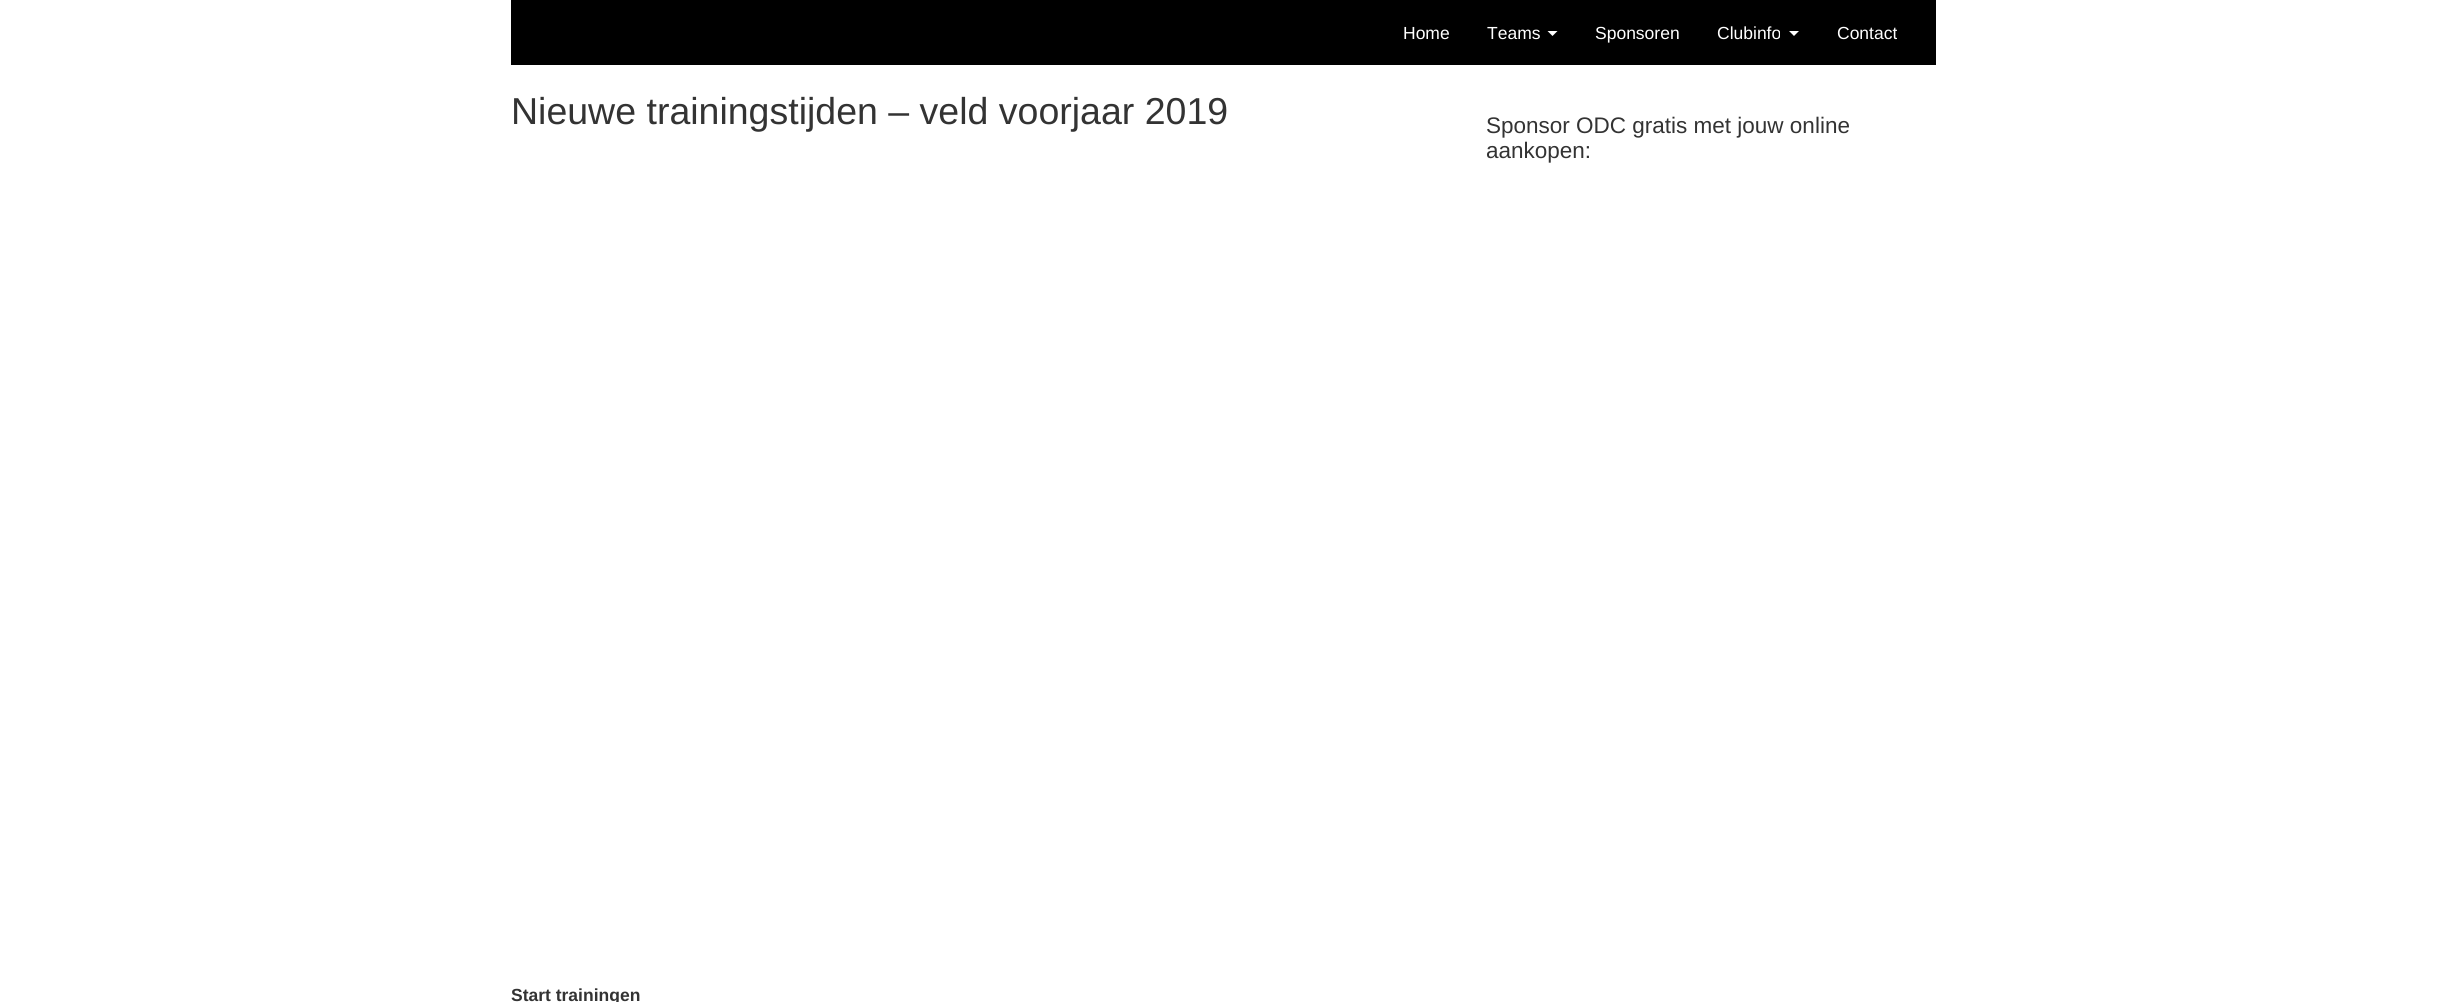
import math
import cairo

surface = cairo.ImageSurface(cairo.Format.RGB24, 2446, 1002)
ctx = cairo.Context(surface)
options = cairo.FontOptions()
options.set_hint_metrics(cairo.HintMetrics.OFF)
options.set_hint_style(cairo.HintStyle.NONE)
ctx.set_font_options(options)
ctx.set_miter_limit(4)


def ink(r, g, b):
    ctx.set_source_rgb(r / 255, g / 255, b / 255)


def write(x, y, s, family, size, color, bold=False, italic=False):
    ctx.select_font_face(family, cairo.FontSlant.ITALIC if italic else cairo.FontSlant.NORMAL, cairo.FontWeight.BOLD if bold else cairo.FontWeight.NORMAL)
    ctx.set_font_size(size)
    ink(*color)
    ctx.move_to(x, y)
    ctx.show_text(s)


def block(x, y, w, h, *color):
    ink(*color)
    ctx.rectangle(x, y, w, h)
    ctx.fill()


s1 = dict(family="Liberation Sans", size=17.5, color=(255, 255, 255))
s2 = dict(family="Liberation Sans", size=37.5, color=(51, 51, 51))
s3 = dict(family="Liberation Sans", size=17.5, color=(51, 51, 51), bold=True)
s4 = dict(family="Liberation Sans", size=22.5, color=(51, 51, 51))

ink(255, 255, 255)
ctx.paint()
block(511, 0, 1425, 65, 0, 0, 0)
write(1403, 39, "Home", **s1)
write(1487, 39, "Teams", **s1)
ctx.new_path()
ctx.move_to(1547.5, 31)
ctx.line_to(1557.5, 31)
ctx.line_to(1552.5, 36)
ctx.close_path()
ctx.fill()
write(1595, 39, "Sponsoren", **s1)
write(1717, 39, "Clubinfo", **s1)
ctx.new_path()
ctx.move_to(1789, 31)
ctx.line_to(1799, 31)
ctx.line_to(1794, 36)
ctx.close_path()
ctx.fill()
write(1837, 39, "Contact", **s1)
write(511, 124, "Nieuwe trainingstijden – veld voorjaar 2019", **s2)
write(511, 1001, "Start trainingen", **s3)
write(1486, 133, "Sponsor ODC gratis met jouw online", **s4)
write(1486, 158, "aankopen:", **s4)
surface.write_to_png("screenshot.png")
